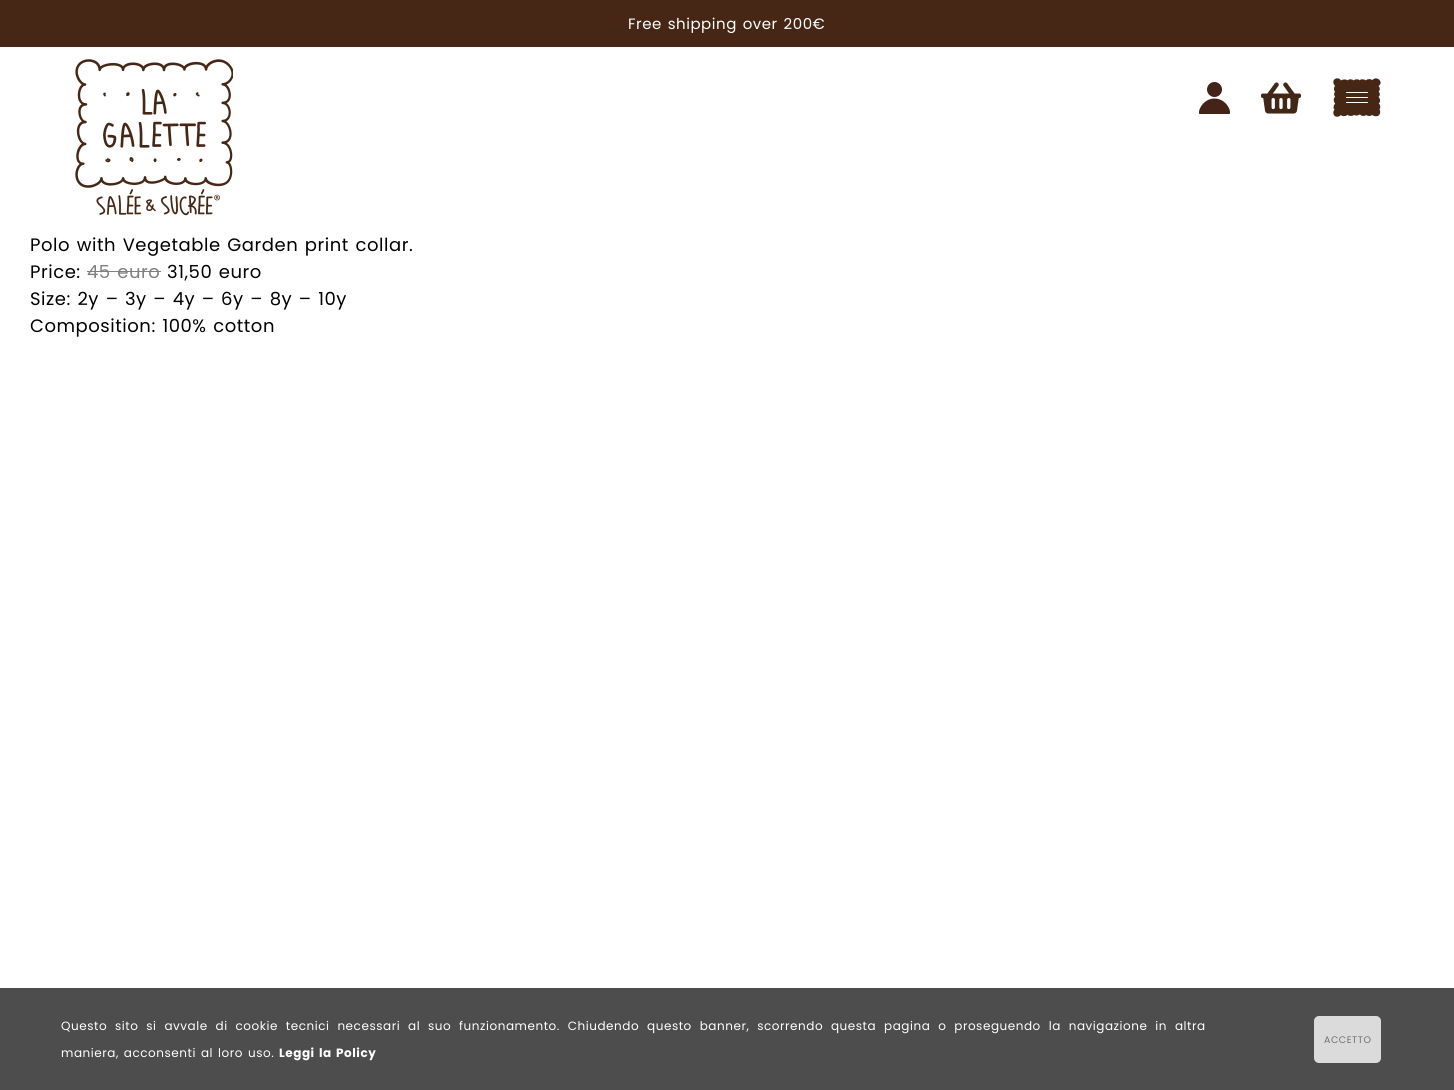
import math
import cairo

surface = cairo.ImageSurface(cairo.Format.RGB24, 1454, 1090)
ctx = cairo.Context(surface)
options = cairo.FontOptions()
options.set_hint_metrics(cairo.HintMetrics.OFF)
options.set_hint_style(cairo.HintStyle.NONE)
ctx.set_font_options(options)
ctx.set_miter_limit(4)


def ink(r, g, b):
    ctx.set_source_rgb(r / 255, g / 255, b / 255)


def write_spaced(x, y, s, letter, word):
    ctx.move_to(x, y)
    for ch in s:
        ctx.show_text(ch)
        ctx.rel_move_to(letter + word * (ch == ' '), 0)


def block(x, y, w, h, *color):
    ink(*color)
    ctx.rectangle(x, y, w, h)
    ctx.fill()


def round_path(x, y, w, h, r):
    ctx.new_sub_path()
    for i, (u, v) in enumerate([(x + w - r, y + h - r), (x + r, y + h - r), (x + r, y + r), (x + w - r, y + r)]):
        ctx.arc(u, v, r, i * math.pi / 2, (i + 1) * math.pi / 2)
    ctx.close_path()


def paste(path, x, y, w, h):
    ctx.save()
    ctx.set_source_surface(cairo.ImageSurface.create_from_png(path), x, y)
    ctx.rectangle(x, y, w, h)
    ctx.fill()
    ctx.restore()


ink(255, 255, 255)
ctx.paint()
block(0, 0, 1454, 47, 70, 39, 22)
ctx.select_font_face("Poppins")
ctx.set_font_size(15)
ink(255, 255, 255)
write_spaced(628, 29, "Free shipping over 200€", 0.54, 1.25)
paste("pic1.png", 75, 59, 158, 157)
ink(68, 36, 24)
ctx.arc(1214.5, 89.5, 7.5, 0, 2 * math.pi)
ctx.fill()
ctx.save()
ctx.rectangle(1199, 82, 31, 32)
ctx.clip()
ctx.new_path()
ctx.move_to(1228.5, 114.5)
ctx.curve_to(1233, 114.5, 1227.5, 98.5, 1214.5, 98.5)
ctx.curve_to(1201.5, 98.5, 1196, 114.5, 1200.5, 114.5)
ctx.close_path()
ctx.fill()
ctx.restore()
paste("pic2.png", 1261, 82, 40, 32)
paste("pic3.png", 1333, 78, 48, 39)
ink(255, 255, 255)
round_path(1346, 97, 22, 1, 0.5)
ctx.fill()
round_path(1346, 92, 22, 1, 0.5)
ctx.fill()
round_path(1346, 102, 22, 1, 0.5)
ctx.fill()
ctx.set_font_size(18)
ink(0, 0, 0)
write_spaced(30, 251, "Polo with Vegetable Garden print collar.", 0.54, 1.25)
write_spaced(30, 278, "Price:", 0.54, 0)
ink(128, 128, 128)
write_spaced(87, 278, "45 euro", 0.54, 1.25)
block(87, 271, 74, 1, 128, 128, 128)
ink(0, 0, 0)
write_spaced(167, 278, "31,50 euro", 0.54, 1.25)
write_spaced(30, 305, "Size: 2y – 3y – 4y – 6y – 8y – 10y", 0.54, 1.25)
write_spaced(30, 332, "Composition: 100% cotton", 0.54, 1.25)
block(0, 988, 1454, 102, 77, 77, 77)
ctx.set_font_size(12)
ink(255, 255, 255)
write_spaced(61, 1030, "Questo sito si avvale di cookie tecnici necessari al suo funzionamento. Chiudendo questo banner, scorrendo questa pagina o proseguendo la navigazione in altra", 0.54, 4.1)
write_spaced(61, 1057, "maniera, acconsenti al loro uso.", 0.54, 1.25)
ctx.select_font_face("Poppins", cairo.FontSlant.NORMAL, cairo.FontWeight.BOLD)
write_spaced(279, 1057, "Leggi la Policy", 0.54, 1.25)
ink(219, 219, 219)
round_path(1314, 1016, 67, 47, 5)
ctx.fill()
ctx.select_font_face("Poppins")
ctx.set_font_size(9.5)
ink(112, 112, 112)
write_spaced(1324, 1043, "ACCETTO", 0.54, 0)
surface.write_to_png("screenshot.png")
